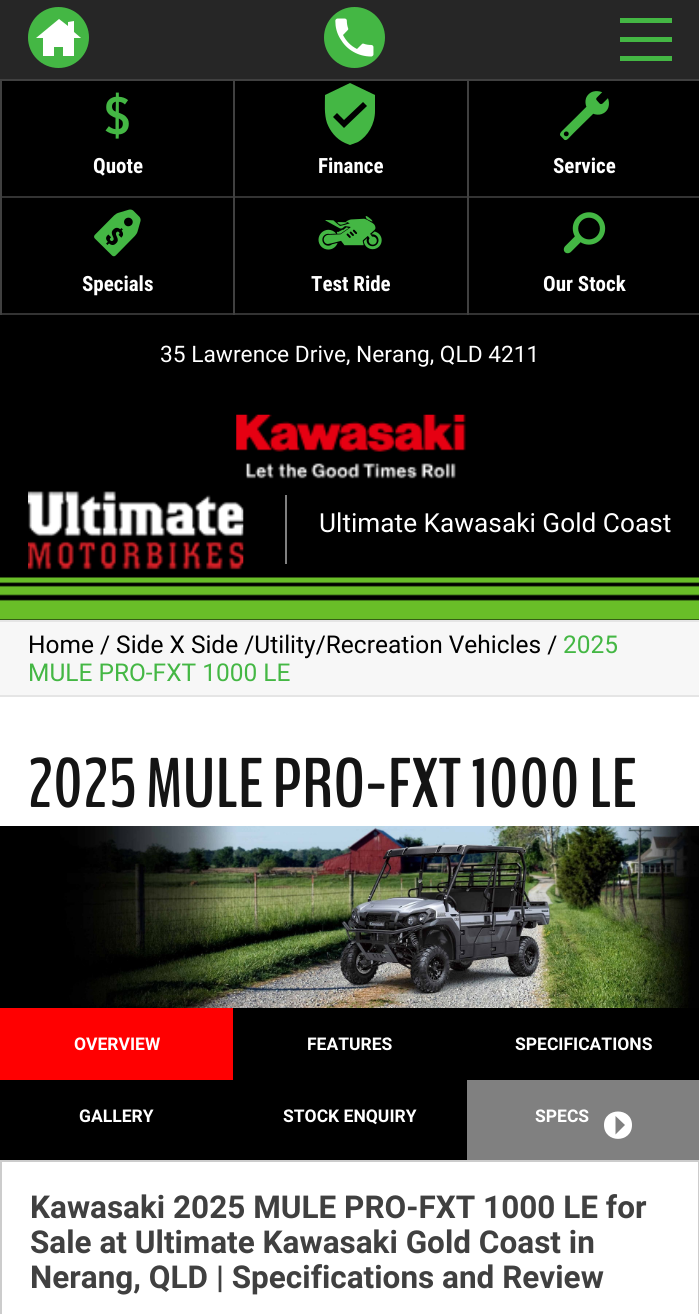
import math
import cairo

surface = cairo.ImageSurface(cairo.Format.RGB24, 699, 1314)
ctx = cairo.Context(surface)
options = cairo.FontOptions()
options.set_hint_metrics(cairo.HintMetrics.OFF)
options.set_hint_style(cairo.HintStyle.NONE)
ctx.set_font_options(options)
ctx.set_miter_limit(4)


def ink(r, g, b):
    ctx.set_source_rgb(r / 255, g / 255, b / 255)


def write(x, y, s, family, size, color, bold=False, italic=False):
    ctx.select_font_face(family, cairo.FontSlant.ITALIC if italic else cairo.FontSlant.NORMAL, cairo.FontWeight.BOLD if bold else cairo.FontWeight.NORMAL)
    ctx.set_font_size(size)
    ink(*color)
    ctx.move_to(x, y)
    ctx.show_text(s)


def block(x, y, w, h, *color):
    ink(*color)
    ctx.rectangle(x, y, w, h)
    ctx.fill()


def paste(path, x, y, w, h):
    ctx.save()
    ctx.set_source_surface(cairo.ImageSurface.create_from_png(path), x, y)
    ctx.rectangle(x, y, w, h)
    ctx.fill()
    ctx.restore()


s1 = dict(family="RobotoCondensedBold", size=21, color=(255, 255, 255), bold=True)
s2 = dict(family="Roboto", size=22.75, color=(255, 255, 255))
s3 = dict(family="Roboto", size=26.25, color=(255, 255, 255))
s4 = dict(family="Roboto", size=24.5, color=(0, 0, 0))
s5 = dict(family="Roboto", size=24.5, color=(68, 183, 68))
s6 = dict(family="BenchNine", size=70, color=(20, 20, 20), bold=True)
s7 = dict(family="Roboto", size=17.5, color=(255, 255, 255), bold=True)
s8 = dict(family="Roboto", size=31.5, color=(64, 64, 64), bold=True)

ink(255, 255, 255)
ctx.paint()
block(0, 0, 699, 79, 38, 38, 38)
ink(68, 183, 68)
ctx.arc(58.5, 37.5, 30.5, 0, 2 * math.pi)
ctx.fill()
ink(255, 255, 255)
ctx.new_path()
ctx.move_to(74, 32)
ctx.line_to(74, 21)
ctx.line_to(68, 22)
ctx.line_to(68, 26)
ctx.line_to(59, 19)
ctx.line_to(36, 38)
ctx.line_to(43, 38)
ctx.line_to(43, 56)
ctx.line_to(54, 56)
ctx.line_to(54, 47)
ctx.line_to(63, 47)
ctx.line_to(63, 56)
ctx.line_to(74, 56)
ctx.line_to(74, 38)
ctx.line_to(81, 38)
ctx.close_path()
ctx.fill()
paste("pic1.png", 324, 7, 61, 61)
block(620, 18, 52, 5, 68, 183, 68)
block(620, 37, 52, 5, 68, 183, 68)
block(620, 56, 52, 5, 68, 183, 68)
block(2, 81, 697, 232, 0, 0, 0)
block(0, 79, 699, 2, 64, 64, 64)
block(0, 196, 699, 2, 51, 51, 51)
block(0, 81, 2, 117, 64, 64, 64)
paste("pic2.png", 105, 92, 24, 47)
write(93, 173, "Quote", **s1)
block(233, 81, 2, 117, 64, 64, 64)
ink(68, 183, 68)
ctx.new_path()
ctx.move_to(375, 111)
ctx.curve_to(375, 124, 368, 136, 358, 142)
ctx.line_to(350, 145)
ctx.line_to(345, 143)
ctx.curve_to(336, 139, 330, 131, 327, 123)
ctx.curve_to(324, 114, 325, 104, 325, 95)
ctx.line_to(350, 83)
ctx.line_to(375, 95)
ctx.close_path()
ctx.move_to(344, 128)
ctx.line_to(367, 106)
ctx.line_to(363, 102)
ctx.line_to(344, 120)
ctx.line_to(337, 113)
ctx.line_to(333, 117)
ctx.close_path()
ctx.fill()
write(318, 173, "Finance", **s1)
block(467, 81, 2, 117, 64, 64, 64)
paste("pic3.png", 560, 91, 49, 50)
write(553, 173, "Service", **s1)
block(0, 313, 699, 2, 51, 51, 51)
block(0, 198, 2, 117, 64, 64, 64)
paste("pic4.png", 94, 209, 47, 48)
write(82, 291, "Specials", **s1)
block(233, 198, 2, 117, 64, 64, 64)
paste("pic5.png", 318, 216, 64, 34)
write(311, 291, "Test Ride", **s1)
block(467, 198, 2, 117, 64, 64, 64)
paste("pic6.png", 563, 212, 43, 42)
write(543, 291, "Our Stock", **s1)
block(0, 315, 699, 305, 0, 0, 0)
write(160, 362, "35 Lawrence Drive, Nerang, QLD 4211", **s2)
paste("pic7.png", 0, 577, 699, 43)
paste("pic8.png", 236, 414, 230, 65)
paste("pic9.png", 28, 491, 216, 79)
block(285, 495, 2, 69, 128, 128, 128)
write(319, 532, "Ultimate Kawasaki Gold Coast", **s3)
block(0, 622, 699, 73, 247, 247, 247)
block(0, 620, 699, 2, 229, 229, 229)
block(0, 695, 699, 2, 229, 229, 229)
write(28, 653, "Home / Side X Side /Utility/Recreation Vehicles /", **s4)
write(563, 653, "2025", **s5)
write(28, 681, "MULE PRO-FXT 1000 LE", **s5)
write(28, 807, "2025 MULE PRO-FXT 1000 LE", **s6)
paste("pic10.png", 0, 826, 699, 182)
block(0, 1008, 699, 152, 0, 0, 0)
block(0, 1008, 233, 72, 255, 0, 1)
write(74, 1050, "OVERVIEW", **s7)
write(307, 1050, "FEATURES", **s7)
write(515, 1050, "SPECIFICATIONS", **s7)
write(79, 1122, "GALLERY", **s7)
write(283, 1122, "STOCK ENQUIRY", **s7)
block(467, 1080, 232, 80, 128, 128, 128)
write(535, 1122, "SPECS", **s7)
ctx.new_path()
ctx.move_to(632, 1125)
ctx.curve_to(632, 1143.5, 604, 1143.5, 604, 1125)
ctx.curve_to(604, 1107, 632, 1107, 632, 1125)
ctx.close_path()
ctx.move_to(625, 1125)
ctx.line_to(615.5, 1116)
ctx.line_to(615.5, 1134.5)
ctx.close_path()
ctx.fill()
ctx.rectangle(1, 1161, 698, 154)
ink(204, 204, 204)
ctx.stroke()
write(30, 1218, "Kawasaki 2025 MULE PRO-FXT 1000 LE for", **s8)
write(30, 1253, "Sale at Ultimate Kawasaki Gold Coast in", **s8)
write(30, 1288, "Nerang, QLD | Specifications and Review", **s8)
surface.write_to_png("screenshot.png")
